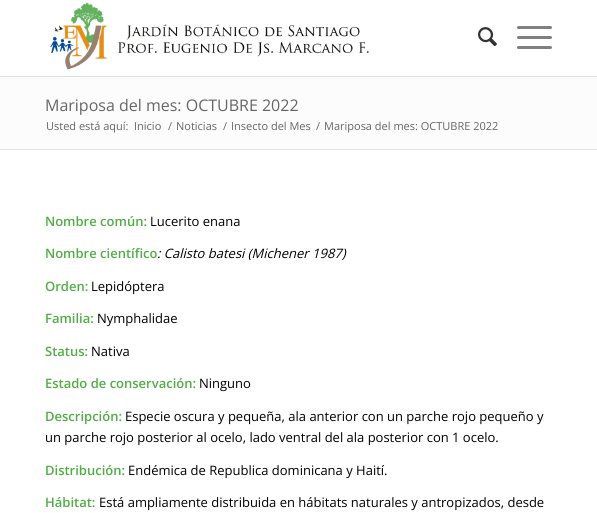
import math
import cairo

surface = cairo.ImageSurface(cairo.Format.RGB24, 597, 513)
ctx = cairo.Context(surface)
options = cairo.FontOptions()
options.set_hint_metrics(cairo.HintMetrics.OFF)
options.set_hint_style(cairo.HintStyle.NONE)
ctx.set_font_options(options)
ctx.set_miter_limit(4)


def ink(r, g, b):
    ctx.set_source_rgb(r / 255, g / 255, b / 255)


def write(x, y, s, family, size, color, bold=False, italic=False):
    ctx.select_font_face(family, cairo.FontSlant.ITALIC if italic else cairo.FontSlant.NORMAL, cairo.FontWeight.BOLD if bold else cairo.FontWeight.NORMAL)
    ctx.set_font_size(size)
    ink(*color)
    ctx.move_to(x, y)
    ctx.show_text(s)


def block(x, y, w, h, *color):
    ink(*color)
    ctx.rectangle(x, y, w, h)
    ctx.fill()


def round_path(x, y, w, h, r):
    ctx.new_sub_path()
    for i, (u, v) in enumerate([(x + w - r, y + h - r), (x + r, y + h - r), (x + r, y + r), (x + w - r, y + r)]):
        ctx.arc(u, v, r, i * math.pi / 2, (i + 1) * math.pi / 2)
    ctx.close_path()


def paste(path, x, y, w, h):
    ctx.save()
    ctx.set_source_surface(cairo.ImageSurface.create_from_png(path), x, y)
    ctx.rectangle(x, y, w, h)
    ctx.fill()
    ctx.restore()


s1 = dict(family="Open Sans", size=16, color=(102, 102, 102))
s2 = dict(family="Open Sans", size=11, color=(102, 102, 102))
s3 = dict(family="Open Sans SemiBold", size=13, color=(81, 174, 69))
s4 = dict(family="Open Sans", size=13, color=(0, 0, 0))
s5 = dict(family="Open Sans", size=13, color=(0, 0, 0), italic=True)

ink(255, 255, 255)
ctx.paint()
block(0, 76, 597, 1, 225, 225, 225)
paste("pic1.png", 50, 2, 319, 68)
paste("pic2.png", 478, 27, 19, 20)
ink(128, 128, 128)
round_path(517, 36, 35, 3, 1.5)
ctx.fill()
round_path(517, 26, 35, 3, 1.5)
ctx.fill()
round_path(517, 46, 35, 3, 1.5)
ctx.fill()
block(0, 77, 597, 72, 252, 252, 252)
write(45, 111, "Mariposa del mes: OCTUBRE 2022", **s1)
write(46, 130, "Usted está aquí:", **s2)
write(134, 130, "Inicio", **s2)
write(168, 130, "/", **s2)
write(176, 130, "Noticias", **s2)
write(223, 130, "/", **s2)
write(231, 130, "Insecto del Mes", **s2)
write(316, 130, "/", **s2)
write(324, 130, "Mariposa del mes: OCTUBRE 2022", **s2)
block(0, 149, 597, 1, 225, 225, 225)
write(45, 226, "Nombre común:", **s3)
write(150, 226, "Lucerito enana", **s4)
write(45, 258, "Nombre científico", **s3)
write(157, 258, ": Calisto batesi (Michener 1987)", **s5)
write(45, 291, "Orden:", **s3)
write(91, 291, "Lepidóptera", **s4)
write(45, 323, "Familia:", **s3)
write(97, 323, "Nymphalidae", **s4)
write(45, 356, "Status:", **s3)
write(91, 356, "Nativa", **s4)
write(45, 388, "Estado de conservación:", **s3)
write(199, 388, "Ninguno", **s4)
write(45, 421, "Descripción:", **s3)
write(125, 421, "Especie oscura y pequeña, ala anterior con un parche rojo pequeño y", **s4)
write(45, 442, "un parche rojo posterior al ocelo, lado ventral del ala posterior con 1 ocelo.", **s4)
write(45, 475, "Distribución:", **s3)
write(128, 475, "Endémica de Republica dominicana y Haití.", **s4)
write(45, 507, "Hábitat:", **s3)
write(99, 507, "Está ampliamente distribuida en hábitats naturales y antropizados, desde", **s4)
surface.write_to_png("screenshot.png")
